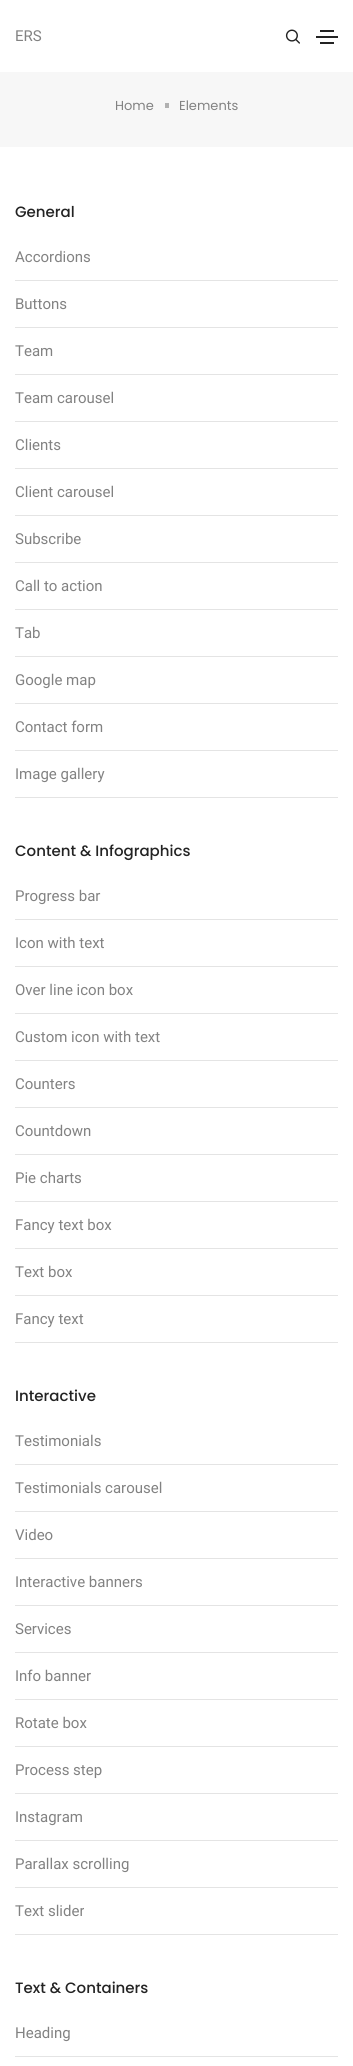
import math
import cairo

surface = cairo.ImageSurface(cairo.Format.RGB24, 353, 2066)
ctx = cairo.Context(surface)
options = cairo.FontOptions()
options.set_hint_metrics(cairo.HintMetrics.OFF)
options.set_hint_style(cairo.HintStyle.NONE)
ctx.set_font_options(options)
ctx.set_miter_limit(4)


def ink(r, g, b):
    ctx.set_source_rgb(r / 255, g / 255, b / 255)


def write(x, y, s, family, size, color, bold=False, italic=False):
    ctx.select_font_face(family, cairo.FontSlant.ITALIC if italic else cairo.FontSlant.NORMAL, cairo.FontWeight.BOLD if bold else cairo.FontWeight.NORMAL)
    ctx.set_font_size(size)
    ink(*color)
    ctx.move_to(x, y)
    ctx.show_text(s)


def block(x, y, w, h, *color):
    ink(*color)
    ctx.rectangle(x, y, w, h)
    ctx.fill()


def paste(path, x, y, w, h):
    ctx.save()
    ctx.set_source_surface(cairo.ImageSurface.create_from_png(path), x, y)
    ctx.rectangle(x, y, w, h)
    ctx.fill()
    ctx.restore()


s1 = dict(family="Roboto", size=15, color=(130, 130, 130))
s2 = dict(family="Poppins", size=13, color=(130, 130, 130))
s3 = dict(family="Poppins Medium", size=15, color=(35, 35, 35))

ink(255, 255, 255)
ctx.paint()
write(15, 41, "ERS", **s1)
paste("pic1.png", 285, 29, 15, 15)
block(320, 30, 14, 2, 35, 35, 35)
block(316, 36, 22, 2, 35, 35, 35)
block(320, 42, 14, 2, 35, 35, 35)
block(0, 72, 353, 75, 247, 247, 247)
write(115, 110, "Home", **s2)
block(165, 103, 4, 5, 177, 177, 177)
write(179, 110, "Elements", **s2)
write(15, 217, "General", **s3)
block(15, 280, 323, 1, 228, 228, 228)
write(15, 262, "Accordions", **s1)
block(15, 327, 323, 1, 228, 228, 228)
write(15, 309, "Buttons", **s1)
block(15, 374, 323, 1, 228, 228, 228)
write(15, 356, "Team", **s1)
block(15, 421, 323, 1, 228, 228, 228)
write(15, 403, "Team carousel", **s1)
block(15, 468, 323, 1, 228, 228, 228)
write(15, 450, "Clients", **s1)
block(15, 515, 323, 1, 228, 228, 228)
write(15, 497, "Client carousel", **s1)
block(15, 562, 323, 1, 228, 228, 228)
write(15, 544, "Subscribe", **s1)
block(15, 609, 323, 1, 228, 228, 228)
write(15, 591, "Call to action", **s1)
block(15, 656, 323, 1, 228, 228, 228)
write(15, 638, "Tab", **s1)
block(15, 703, 323, 1, 228, 228, 228)
write(15, 685, "Google map", **s1)
block(15, 750, 323, 1, 228, 228, 228)
write(15, 732, "Contact form", **s1)
block(15, 797, 323, 1, 228, 228, 228)
write(15, 779, "Image gallery", **s1)
write(15, 856, "Content & Infographics", **s3)
block(15, 919, 323, 1, 228, 228, 228)
write(15, 901, "Progress bar", **s1)
block(15, 966, 323, 1, 228, 228, 228)
write(15, 948, "Icon with text", **s1)
block(15, 1013, 323, 1, 228, 228, 228)
write(15, 995, "Over line icon box", **s1)
block(15, 1060, 323, 1, 228, 228, 228)
write(15, 1042, "Custom icon with text", **s1)
block(15, 1107, 323, 1, 228, 228, 228)
write(15, 1089, "Counters", **s1)
block(15, 1154, 323, 1, 228, 228, 228)
write(15, 1136, "Countdown", **s1)
block(15, 1201, 323, 1, 228, 228, 228)
write(15, 1183, "Pie charts", **s1)
block(15, 1248, 323, 1, 228, 228, 228)
write(15, 1230, "Fancy text box", **s1)
block(15, 1295, 323, 1, 228, 228, 228)
write(15, 1277, "Text box", **s1)
block(15, 1342, 323, 1, 228, 228, 228)
write(15, 1324, "Fancy text", **s1)
write(15, 1401, "Interactive", **s3)
block(15, 1464, 323, 1, 228, 228, 228)
write(15, 1446, "Testimonials", **s1)
block(15, 1511, 323, 1, 228, 228, 228)
write(15, 1493, "Testimonials carousel", **s1)
block(15, 1558, 323, 1, 228, 228, 228)
write(15, 1540, "Video", **s1)
block(15, 1605, 323, 1, 228, 228, 228)
write(15, 1587, "Interactive banners", **s1)
block(15, 1652, 323, 1, 228, 228, 228)
write(15, 1634, "Services", **s1)
block(15, 1699, 323, 1, 228, 228, 228)
write(15, 1681, "Info banner", **s1)
block(15, 1746, 323, 1, 228, 228, 228)
write(15, 1728, "Rotate box", **s1)
block(15, 1793, 323, 1, 228, 228, 228)
write(15, 1775, "Process step", **s1)
block(15, 1840, 323, 1, 228, 228, 228)
write(15, 1822, "Instagram", **s1)
block(15, 1887, 323, 1, 228, 228, 228)
write(15, 1869, "Parallax scrolling", **s1)
block(15, 1934, 323, 1, 228, 228, 228)
write(15, 1916, "Text slider", **s1)
write(15, 1993, "Text & Containers", **s3)
block(15, 2056, 323, 1, 228, 228, 228)
write(15, 2038, "Heading", **s1)
surface.write_to_png("screenshot.png")
